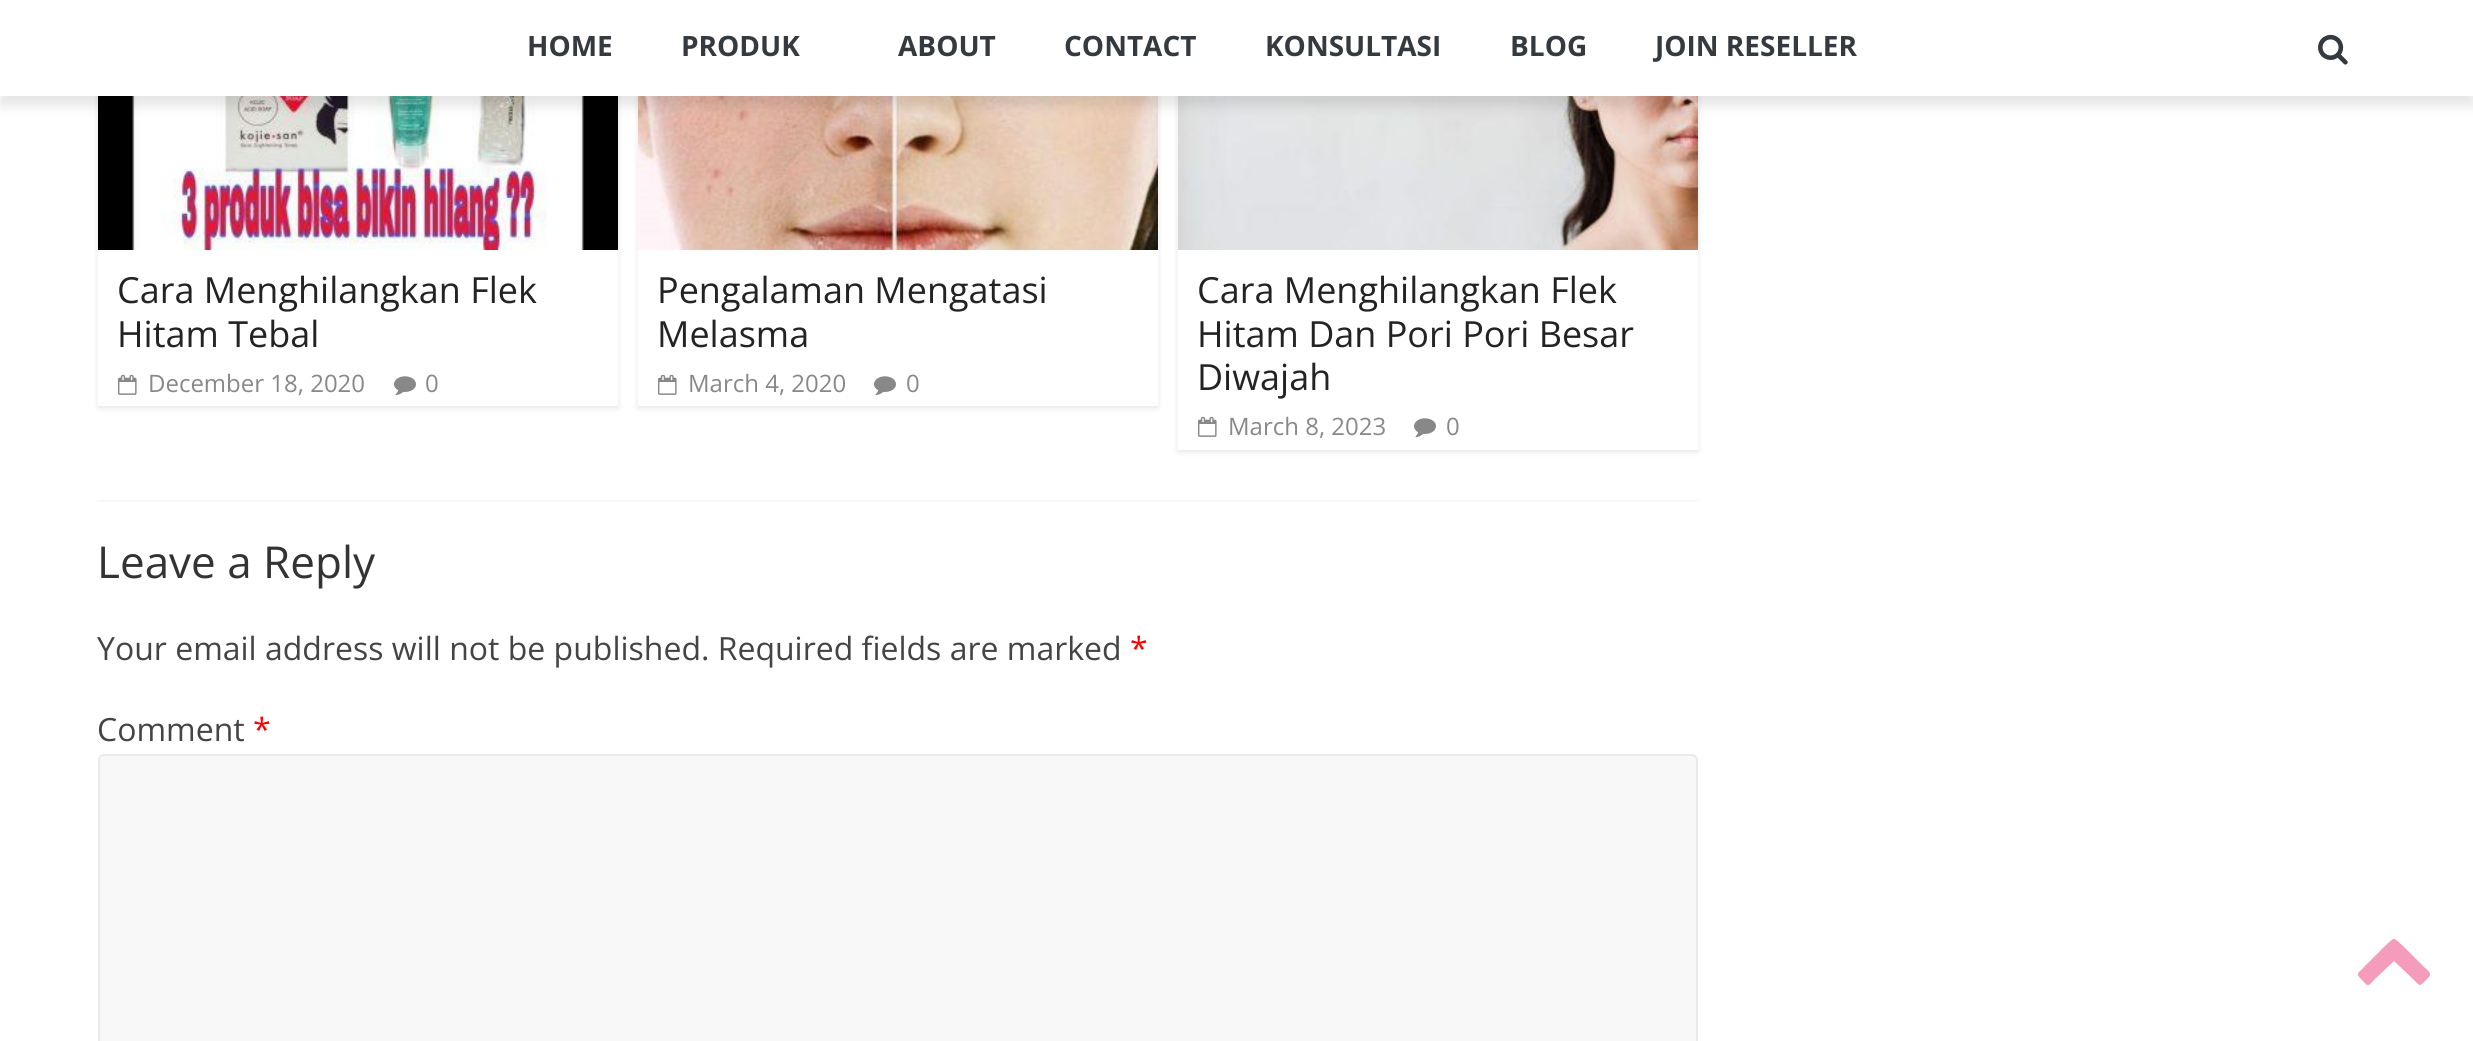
import math
import cairo

surface = cairo.ImageSurface(cairo.Format.RGB24, 2473, 1041)
ctx = cairo.Context(surface)
options = cairo.FontOptions()
options.set_hint_metrics(cairo.HintMetrics.OFF)
options.set_hint_style(cairo.HintStyle.NONE)
ctx.set_font_options(options)
ctx.set_miter_limit(4)


def ink(r, g, b):
    ctx.set_source_rgb(r / 255, g / 255, b / 255)


def write(x, y, s, family, size, color, bold=False, italic=False):
    ctx.select_font_face(family, cairo.FontSlant.ITALIC if italic else cairo.FontSlant.NORMAL, cairo.FontWeight.BOLD if bold else cairo.FontWeight.NORMAL)
    ctx.set_font_size(size)
    ink(*color)
    ctx.move_to(x, y)
    ctx.show_text(s)


def block(x, y, w, h, *color):
    ink(*color)
    ctx.rectangle(x, y, w, h)
    ctx.fill()


def round_path(x, y, w, h, r):
    ctx.new_sub_path()
    for i, (u, v) in enumerate([(x + w - r, y + h - r), (x + r, y + h - r), (x + r, y + r), (x + w - r, y + r)]):
        ctx.arc(u, v, r, i * math.pi / 2, (i + 1) * math.pi / 2)
    ctx.close_path()


def blur_box(x, y, w, h, r, blur, alpha):
    ctx.push_group_with_content(cairo.Content.ALPHA)
    ctx.set_operator(cairo.Operator.SOURCE)
    for i in range(15, -16, -2):
        e = blur * i / 6
        if min(w, h) + 2 * e > 0:
            ctx.set_source_rgba(0, 0, 0, alpha * math.erfc((i - 1) / 8.5) / 2)
            round_path(x - e, y - e, w + 2 * e, h + 2 * e, max(0, min(r + e + blur * .6, min(w, h) / 2 + e)))
            ctx.fill()
    ctx.mask(ctx.pop_group())


def paste(path, x, y, w, h):
    ctx.save()
    ctx.set_source_surface(cairo.ImageSurface.create_from_png(path), x, y)
    ctx.rectangle(x, y, w, h)
    ctx.fill()
    ctx.restore()


s1 = dict(family="Open Sans", size=28, color=(52, 58, 64), bold=True)
s2 = dict(family="Open Sans", size=36, color=(35, 35, 35))
s3 = dict(family="Open Sans", size=24, color=(136, 136, 136))
s4 = dict(family="Open Sans", size=44, color=(51, 51, 51))
s5 = dict(family="Open Sans", size=32, color=(68, 68, 68))
s6 = dict(family="Open Sans", size=32, color=(255, 0, 0))

ink(255, 255, 255)
ctx.paint()
ctx.save()
ctx.set_fill_rule(cairo.FillRule.EVEN_ODD)
ctx.new_path()
ctx.move_to(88, 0)
ctx.line_to(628, 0)
ctx.line_to(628, 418)
ctx.line_to(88, 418)
ctx.close_path()
ctx.move_to(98, -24)
ctx.line_to(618, -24)
ctx.line_to(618, 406)
ctx.line_to(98, 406)
ctx.close_path()
ctx.clip()
ink(0, 0, 0)
blur_box(98, -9, 520, 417, 0, 3, 0.1)
ctx.restore()
paste("pic2.png", 98, 96, 520, 154)
ctx.save()
ctx.set_fill_rule(cairo.FillRule.EVEN_ODD)
ctx.new_path()
ctx.move_to(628, 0)
ctx.line_to(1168, 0)
ctx.line_to(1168, 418)
ctx.line_to(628, 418)
ctx.close_path()
ctx.move_to(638, -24)
ctx.line_to(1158, -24)
ctx.line_to(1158, 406)
ctx.line_to(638, 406)
ctx.close_path()
ctx.clip()
ink(0, 0, 0)
blur_box(638, -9, 520, 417, 0, 3, 0.1)
ctx.restore()
paste("pic5.png", 638, 96, 520, 154)
ctx.save()
ctx.set_fill_rule(cairo.FillRule.EVEN_ODD)
ctx.new_path()
ctx.move_to(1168, 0)
ctx.line_to(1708, 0)
ctx.line_to(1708, 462)
ctx.line_to(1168, 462)
ctx.close_path()
ctx.move_to(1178, -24)
ctx.line_to(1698, -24)
ctx.line_to(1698, 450)
ctx.line_to(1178, 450)
ctx.close_path()
ctx.clip()
ink(0, 0, 0)
blur_box(1178, -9, 520, 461, 0, 3, 0.1)
ctx.restore()
paste("pic6.png", 1178, 96, 520, 154)
ink(0, 0, 0)
blur_box(0, 10, 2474, 96, 0, 6, 0.1)
block(0, 0, 2473, 96, 255, 255, 255)
write(527, 56, "HOME", **s1)
write(681, 56, "PRODUK", **s1)
write(898, 56, "ABOUT", **s1)
write(1064, 56, "CONTACT", **s1)
write(1265, 56, "KONSULTASI", **s1)
write(1510, 56, "BLOG", **s1)
write(1655, 56, "JOIN RESELLER", **s1)
paste("pic1.png", 2318, 34, 30, 31)
write(117, 303, "Cara Menghilangkan Flek", **s2)
write(117, 347, "Hitam Tebal", **s2)
paste("pic3.png", 118, 374, 19, 21)
write(148, 392, "December 18, 2020", **s3)
paste("pic4.png", 394, 376, 22, 20)
write(425, 392, "0", **s3)
write(657, 303, "Pengalaman Mengatasi", **s2)
write(657, 347, "Melasma", **s2)
paste("pic3.png", 658, 374, 19, 21)
write(688, 392, "March 4, 2020", **s3)
paste("pic4.png", 874, 376, 22, 20)
write(906, 392, "0", **s3)
write(1197, 303, "Cara Menghilangkan Flek", **s2)
write(1197, 347, "Hitam Dan Pori Pori Besar", **s2)
write(1197, 390, "Diwajah", **s2)
paste("pic3.png", 1198, 416, 19, 21)
write(1228, 435, "March 8, 2023", **s3)
paste("pic4.png", 1414, 418, 22, 20)
write(1446, 435, "0", **s3)
block(98, 500, 1600, 2, 248, 248, 248)
write(97, 578, "Leave a Reply", **s4)
write(97, 660, "Your email address will not be published. Required fields are marked", **s5)
write(1130, 660, "*", **s6)
write(97, 741, "Comment", **s5)
write(253, 741, "*", **s6)
ink(248, 248, 248)
round_path(99, 755, 1598, 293, 5)
ctx.fill_preserve()
ink(234, 234, 234)
ctx.stroke()
ink(245, 156, 188)
ctx.new_path()
ctx.move_to(2429, 977)
ctx.line_to(2423, 983)
ctx.curve_to(2419, 987, 2418, 984, 2414, 980)
ctx.line_to(2394, 961)
ctx.line_to(2374, 980)
ctx.curve_to(2367, 988, 2368, 986, 2360, 978)
ctx.curve_to(2355, 973, 2360, 972, 2364, 967)
ctx.line_to(2386, 945)
ctx.curve_to(2395, 937, 2393, 937, 2402, 945)
ctx.line_to(2424, 967)
ctx.curve_to(2425, 968, 2433, 973, 2429, 977)
ctx.close_path()
ctx.fill()
surface.write_to_png("screenshot.png")
